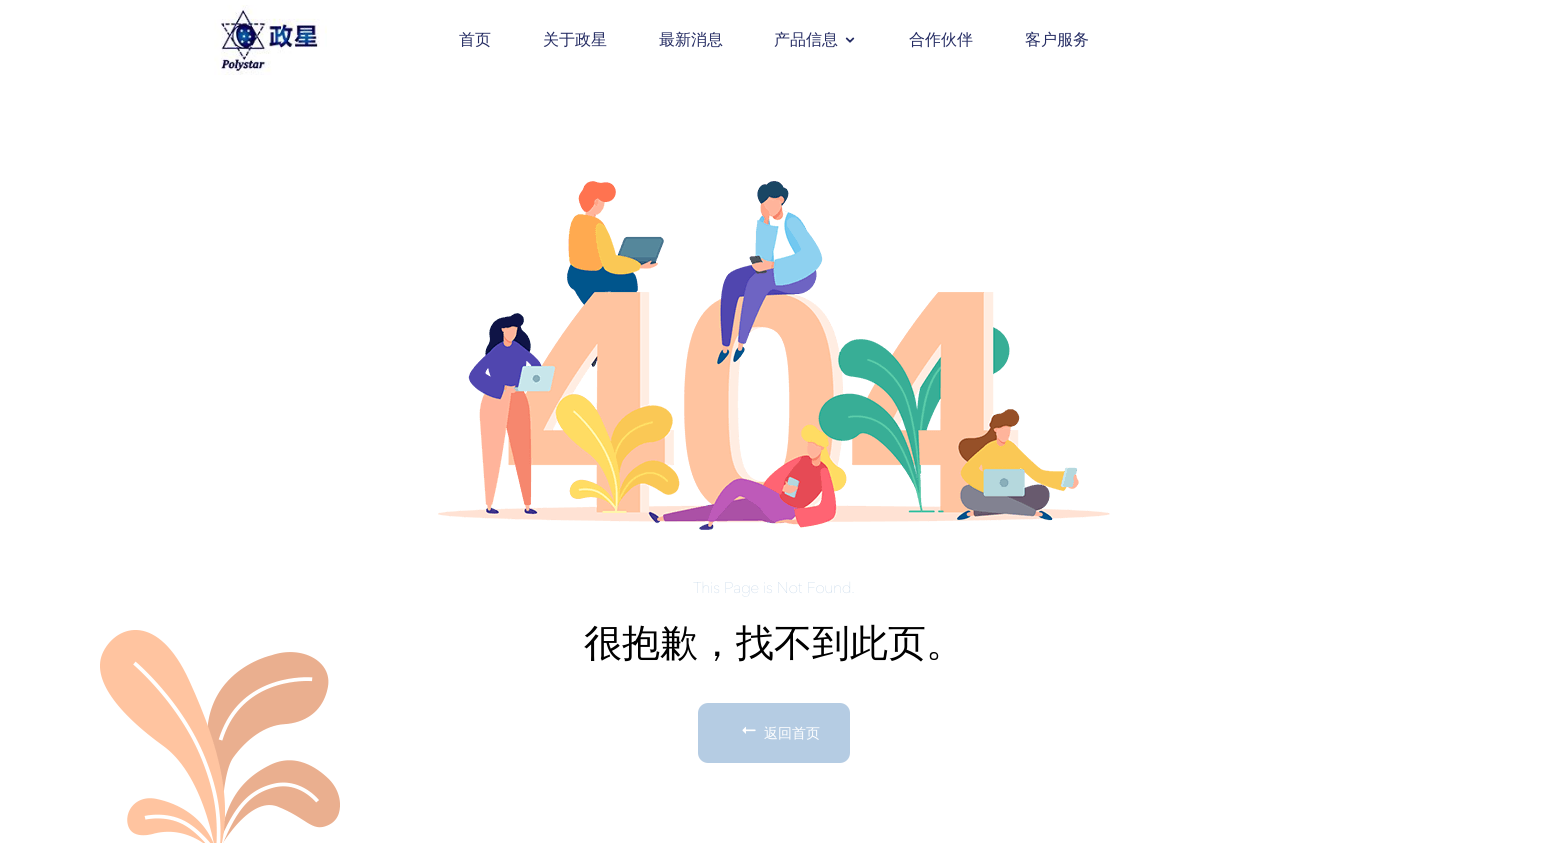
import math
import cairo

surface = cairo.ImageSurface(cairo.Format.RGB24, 1548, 843)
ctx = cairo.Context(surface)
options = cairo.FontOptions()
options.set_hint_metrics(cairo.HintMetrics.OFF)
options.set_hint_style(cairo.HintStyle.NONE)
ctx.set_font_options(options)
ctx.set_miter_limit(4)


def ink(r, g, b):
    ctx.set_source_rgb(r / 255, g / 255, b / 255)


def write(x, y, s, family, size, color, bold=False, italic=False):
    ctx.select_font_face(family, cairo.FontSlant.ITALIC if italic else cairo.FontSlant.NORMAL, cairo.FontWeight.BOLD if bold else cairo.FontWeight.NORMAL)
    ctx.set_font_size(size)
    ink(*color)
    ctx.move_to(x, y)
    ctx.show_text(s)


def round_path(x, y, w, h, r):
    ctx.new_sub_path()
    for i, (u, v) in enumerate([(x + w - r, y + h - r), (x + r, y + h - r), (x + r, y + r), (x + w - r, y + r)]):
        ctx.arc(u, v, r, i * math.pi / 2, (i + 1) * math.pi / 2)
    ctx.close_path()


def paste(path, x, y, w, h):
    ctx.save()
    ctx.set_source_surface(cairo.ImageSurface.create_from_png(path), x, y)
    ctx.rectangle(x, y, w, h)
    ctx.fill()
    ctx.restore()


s1 = dict(family="WenQuanYi Zen Hei Medium", size=16, color=(37, 44, 99))
s2 = dict(family="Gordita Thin", size=14, color=(181, 204, 227))
s3 = dict(family="WenQuanYi Zen Hei Medium", size=38, color=(0, 0, 0))
s4 = dict(family="WenQuanYi Zen Hei Medium", size=14, color=(255, 255, 255))

ink(255, 255, 255)
ctx.paint()
paste("pic1.png", 214, 5, 113, 70)
write(459, 45, "首页", **s1)
write(543, 45, "关于政星", **s1)
write(659, 45, "最新消息", **s1)
write(774, 45, "产品信息", **s1)
paste("pic2.png", 845, 37, 10, 6)
write(909, 45, "合作伙伴", **s1)
write(1025, 45, "客户服务", **s1)
paste("pic3.png", 100, 630, 240, 213)
paste("pic4.png", 438, 181, 672, 349)
write(693, 593, "This Page is Not Found.", **s2)
write(584, 656, "很抱歉，找不到此页。", **s3)
ink(181, 204, 227)
round_path(698, 703, 152, 60, 10)
ctx.fill()
paste("pic5.png", 742, 726, 14, 8)
write(764, 738, "返回首页", **s4)
surface.write_to_png("screenshot.png")
